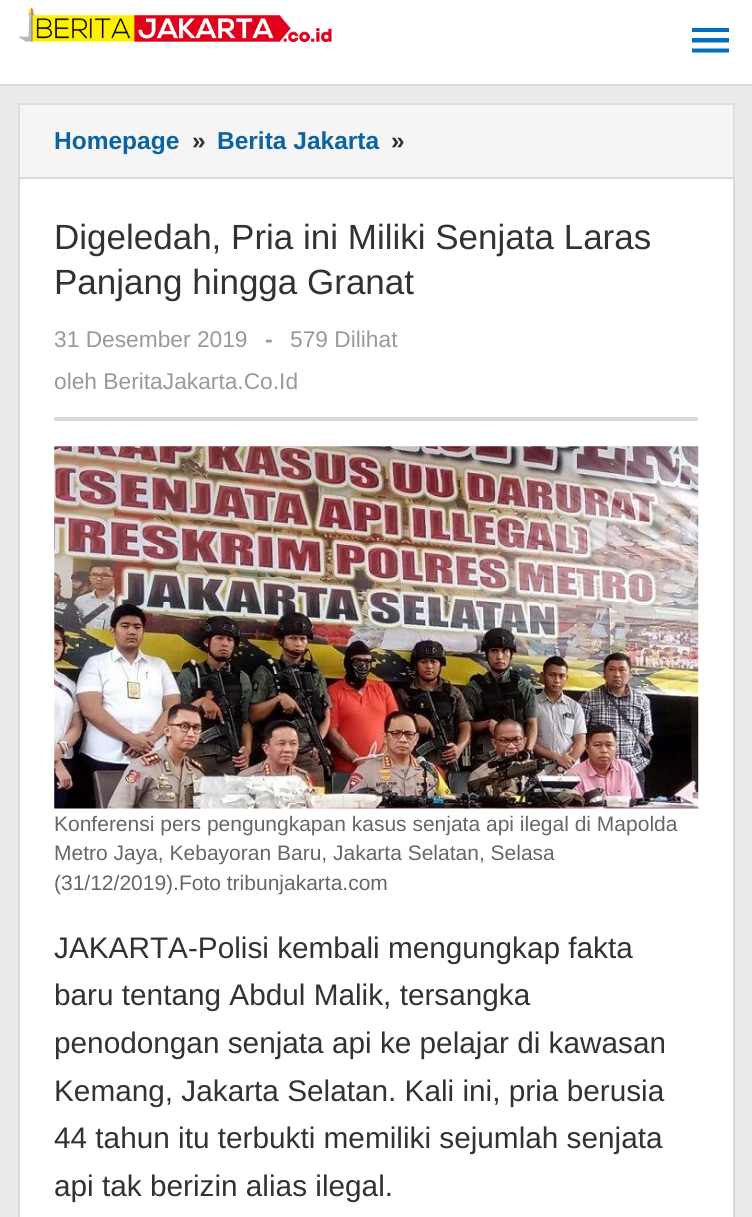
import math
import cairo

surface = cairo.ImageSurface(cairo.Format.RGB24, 752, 1217)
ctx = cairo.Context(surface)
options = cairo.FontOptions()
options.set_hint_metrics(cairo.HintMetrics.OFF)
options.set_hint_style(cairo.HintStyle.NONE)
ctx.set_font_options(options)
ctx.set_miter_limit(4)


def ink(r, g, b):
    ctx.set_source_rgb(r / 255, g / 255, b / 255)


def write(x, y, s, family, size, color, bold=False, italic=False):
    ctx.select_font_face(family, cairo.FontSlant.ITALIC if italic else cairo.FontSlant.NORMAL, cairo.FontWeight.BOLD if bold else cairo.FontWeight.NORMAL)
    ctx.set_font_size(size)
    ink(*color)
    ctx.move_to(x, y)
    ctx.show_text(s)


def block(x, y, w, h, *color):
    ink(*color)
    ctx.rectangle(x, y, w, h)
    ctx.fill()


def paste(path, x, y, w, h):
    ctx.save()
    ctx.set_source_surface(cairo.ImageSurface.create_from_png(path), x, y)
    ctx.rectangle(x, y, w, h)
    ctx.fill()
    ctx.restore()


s1 = dict(family="Liberation Sans", size=24.5, color=(11, 99, 161), bold=True)
s2 = dict(family="Liberation Sans", size=24.5, color=(50, 50, 51), bold=True)
s3 = dict(family="Liberation Sans", size=35, color=(50, 50, 51))
s4 = dict(family="Liberation Sans", size=22.75, color=(153, 153, 153))
s5 = dict(family="Liberation Sans", size=22.75, color=(153, 153, 153), bold=True)
s6 = dict(family="Liberation Sans", size=21, color=(102, 102, 102))
s7 = dict(family="Liberation Sans", size=29.75, color=(50, 50, 51))

ink(235, 235, 235)
ctx.paint()
block(0, 0, 752, 84, 255, 255, 255)
block(0, 84, 752, 2, 217, 217, 217)
paste("pic1.png", 19, 7, 313, 35)
ink(1, 111, 186)
ctx.new_path()
ctx.move_to(692, 52.5)
ctx.line_to(729, 52.5)
ctx.line_to(729, 48.5)
ctx.line_to(692, 48.5)
ctx.close_path()
ctx.move_to(692, 42.5)
ctx.line_to(729, 42.5)
ctx.line_to(729, 38)
ctx.line_to(692, 38)
ctx.close_path()
ctx.move_to(692, 28)
ctx.line_to(692, 32)
ctx.line_to(729, 32)
ctx.line_to(729, 28)
ctx.close_path()
ctx.fill()
ink(245, 245, 245)
ctx.rectangle(19, 104, 715, 74)
ctx.fill_preserve()
ink(221, 221, 221)
ctx.stroke()
write(54, 149, "Homepage", **s1)
write(192, 149, "»", **s2)
write(217, 149, "Berita Jakarta", **s1)
write(391, 149, "»", **s2)
ink(255, 255, 255)
ctx.rectangle(19, 178, 715, 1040)
ctx.fill_preserve()
ink(217, 217, 217)
ctx.stroke()
block(54, 417, 644, 4, 217, 217, 217)
write(54, 249, "Digeledah, Pria ini Miliki Senjata Laras", **s3)
write(54, 294, "Panjang hingga Granat", **s3)
write(54, 347, "31 Desember 2019", **s4)
write(265, 347, "-", **s5)
write(290, 347, "579 Dilihat", **s4)
write(54, 389, "oleh BeritaJakarta.Co.Id", **s4)
paste("pic2.png", 54, 446, 645, 363)
write(54, 831, "Konferensi pers pengungkapan kasus senjata api ilegal di Mapolda", **s6)
write(54, 860, "Metro Jaya, Kebayoran Baru, Jakarta Selatan, Selasa", **s6)
write(54, 890, "(31/12/2019).Foto tribunjakarta.com", **s6)
write(54, 958, "JAKARTA-Polisi kembali mengungkap fakta", **s7)
write(54, 1005, "baru tentang Abdul Malik, tersangka", **s7)
write(54, 1053, "penodongan senjata api ke pelajar di kawasan", **s7)
write(54, 1101, "Kemang, Jakarta Selatan. Kali ini, pria berusia", **s7)
write(54, 1148, "44 tahun itu terbukti memiliki sejumlah senjata", **s7)
write(54, 1196, "api tak berizin alias ilegal.", **s7)
surface.write_to_png("screenshot.png")
